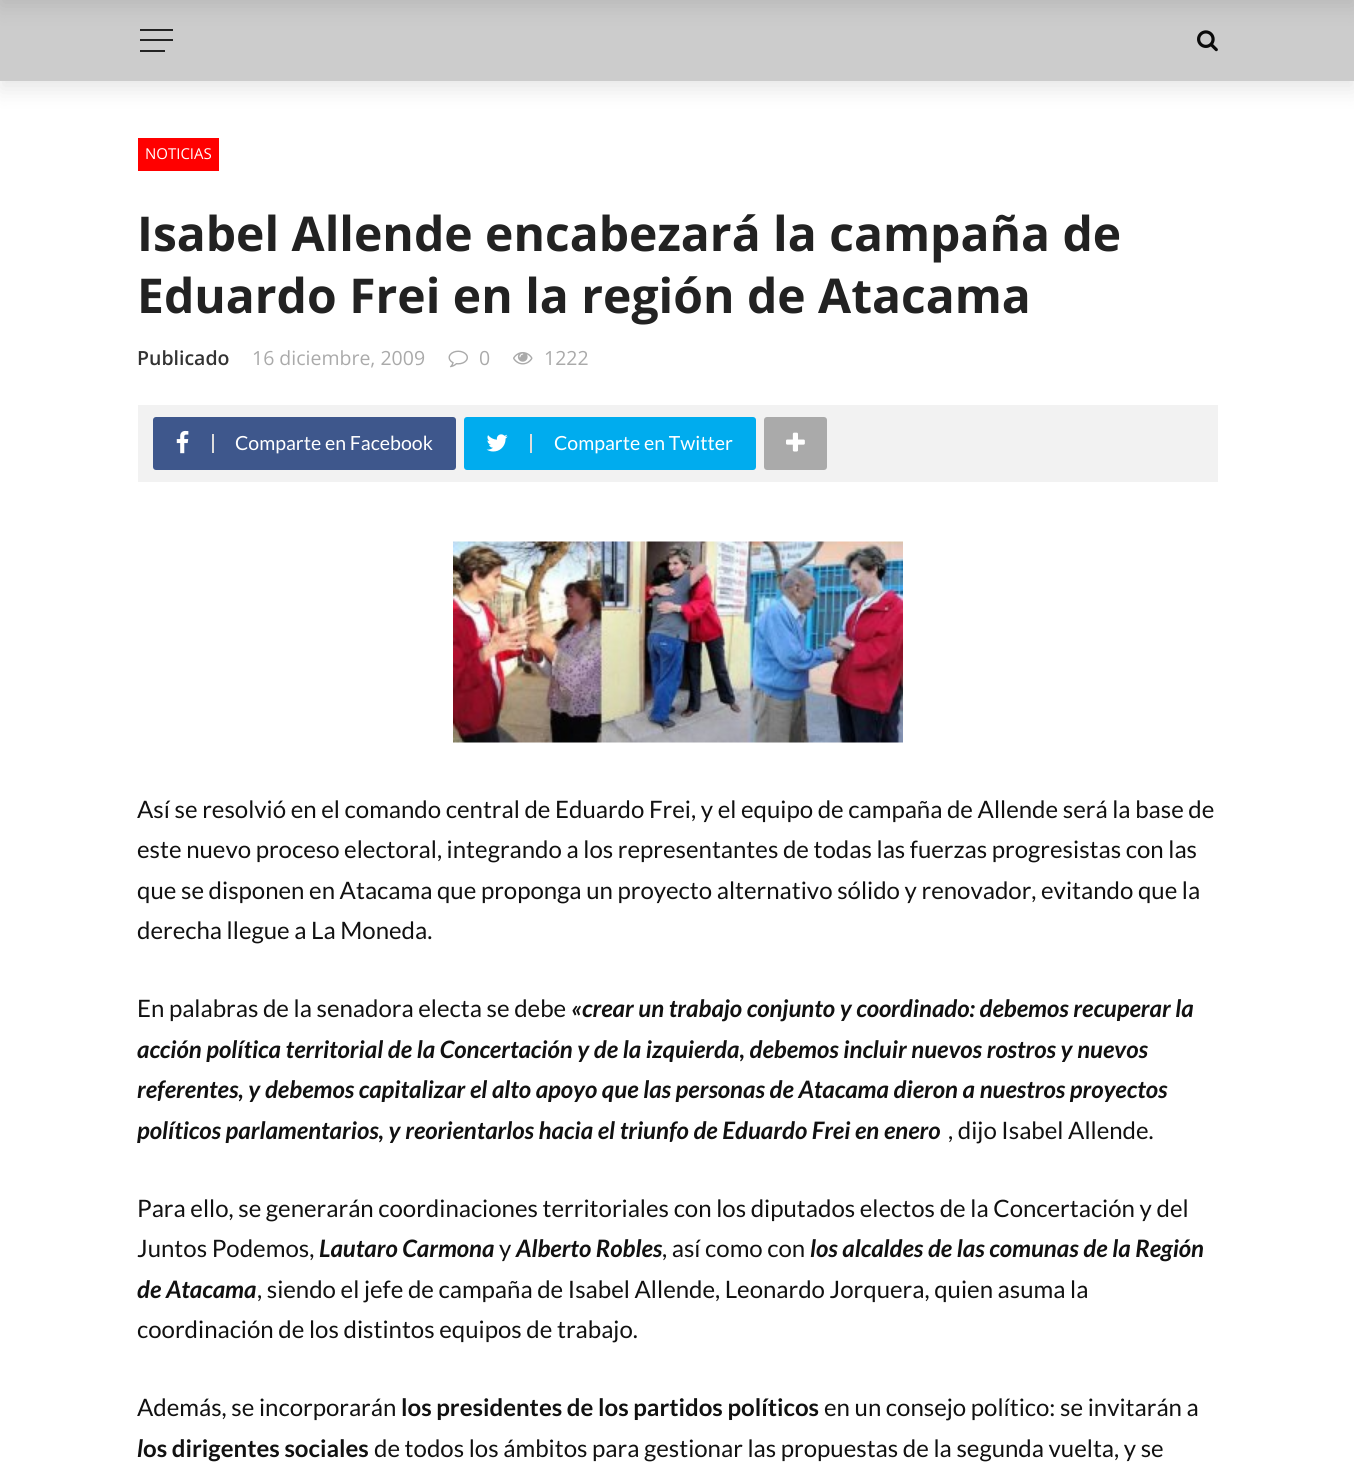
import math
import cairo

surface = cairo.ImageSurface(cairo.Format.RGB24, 1354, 1482)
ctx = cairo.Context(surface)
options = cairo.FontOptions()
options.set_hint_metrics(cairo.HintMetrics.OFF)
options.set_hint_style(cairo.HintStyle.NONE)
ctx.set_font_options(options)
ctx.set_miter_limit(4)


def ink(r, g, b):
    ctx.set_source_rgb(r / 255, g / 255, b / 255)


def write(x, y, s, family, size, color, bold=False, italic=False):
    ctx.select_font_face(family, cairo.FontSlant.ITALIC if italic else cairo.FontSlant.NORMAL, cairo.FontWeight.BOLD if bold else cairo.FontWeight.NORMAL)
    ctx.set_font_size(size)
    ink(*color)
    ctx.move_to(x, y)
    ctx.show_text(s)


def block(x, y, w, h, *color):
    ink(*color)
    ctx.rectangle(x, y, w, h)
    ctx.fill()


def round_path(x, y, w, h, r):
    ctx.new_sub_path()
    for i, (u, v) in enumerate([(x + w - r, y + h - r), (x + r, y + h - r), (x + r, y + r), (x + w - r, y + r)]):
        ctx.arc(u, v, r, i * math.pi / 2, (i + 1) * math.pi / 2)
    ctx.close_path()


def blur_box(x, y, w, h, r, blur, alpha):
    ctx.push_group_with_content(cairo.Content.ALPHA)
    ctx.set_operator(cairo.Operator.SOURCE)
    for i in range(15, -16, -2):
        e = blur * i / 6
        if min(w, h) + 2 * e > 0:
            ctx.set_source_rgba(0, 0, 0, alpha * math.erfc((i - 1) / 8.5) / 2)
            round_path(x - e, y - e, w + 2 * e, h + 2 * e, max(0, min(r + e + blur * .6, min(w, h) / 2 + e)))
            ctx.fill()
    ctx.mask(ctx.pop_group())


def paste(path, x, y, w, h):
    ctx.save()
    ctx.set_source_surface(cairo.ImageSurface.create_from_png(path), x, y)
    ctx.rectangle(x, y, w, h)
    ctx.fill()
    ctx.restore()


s1 = dict(family="Open Sans", size=15, color=(255, 255, 255))
s2 = dict(family="Open Sans", size=48, color=(34, 34, 34), bold=True)
s3 = dict(family="Open Sans SemiBold", size=19.5, color=(51, 51, 51))
s4 = dict(family="Open Sans", size=19.5, color=(170, 170, 170))
s5 = dict(family="Lato", size=19.5, color=(255, 255, 255))
s6 = dict(family="Lato", size=24, color=(17, 17, 17))
s7 = dict(family="Lato", size=24, color=(17, 17, 17), bold=True, italic=True)
s8 = dict(family="Lato", size=24, color=(17, 17, 17), bold=True)

ink(255, 255, 255)
ctx.paint()
ink(0, 0, 0)
blur_box(0, 8, 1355, 81, 0, 11, 0.1)
block(0, 0, 1354, 81, 204, 204, 204)
block(140, 29, 33, 2, 34, 34, 34)
block(140, 39, 33, 2, 34, 34, 34)
block(140, 50, 25, 2, 34, 34, 34)
paste("pic1.png", 1197, 30, 21, 22)
ink(0, 0, 0)
blur_box(0, -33, 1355, 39, 0, 11, 0.1)
block(138, 138, 81, 33, 255, 0, 0)
write(145, 159, "NOTICIAS", **s1)
write(137, 251, "Isabel Allende encabezará la campaña de", **s2)
write(137, 313, "Eduardo Frei en la región de Atacama", **s2)
write(137, 365, "Publicado", **s3)
write(252, 365, "16 diciembre, 2009", **s4)
paste("pic2.png", 448, 350, 20, 18)
write(479, 365, "0", **s4)
paste("pic3.png", 513, 352, 20, 13)
write(544, 365, "1222", **s4)
block(138, 405, 1080, 77, 242, 242, 242)
ink(62, 87, 140)
round_path(153, 417, 303, 53, 3)
ctx.fill()
paste("pic4.png", 176, 430, 13, 24)
block(212, 434, 2, 19, 221, 221, 221)
write(235, 450, "Comparte en Facebook", **s5)
ink(0, 172, 238)
round_path(464, 417, 292, 53, 3)
ctx.fill()
paste("pic5.png", 486, 434, 22, 18)
block(530, 434, 2, 19, 221, 221, 221)
write(554, 450, "Comparte en Twitter", **s5)
ink(170, 170, 170)
round_path(764, 417, 63, 53, 3)
ctx.fill()
paste("pic6.png", 786, 432, 19, 20)
paste("pic7.png", 453, 541, 450, 202)
write(137, 818, "Así se resolvió en el comando central de Eduardo Frei, y el equipo de campaña de Allende será la base de", **s6)
write(137, 858, "este nuevo proceso electoral, integrando a los representantes de todas las fuerzas progresistas con las", **s6)
write(137, 899, "que se disponen en Atacama que proponga un proyecto alternativo sólido y renovador, evitando que la", **s6)
write(137, 939, "derecha llegue a La Moneda.", **s6)
write(137, 1017, "En palabras de la senadora electa se debe", **s6)
write(571, 1017, "«crear un trabajo conjunto y coordinado: debemos recuperar la", **s7)
write(137, 1058, "acción política territorial de la Concertación y de la izquierda, debemos incluir nuevos rostros y nuevos", **s7)
write(137, 1098, "referentes, y debemos capitalizar el alto apoyo que las personas de Atacama dieron a nuestros proyectos", **s7)
write(137, 1139, "políticos parlamentarios, y reorientarlos hacia el triunfo de Eduardo Frei en enero", **s7)
write(948, 1139, ", dijo Isabel Allende.", **s6)
write(137, 1217, "Para ello, se generarán coordinaciones territoriales con los diputados electos de la Concertación y del", **s6)
write(137, 1257, "Juntos Podemos,", **s6)
write(319, 1257, "Lautaro Carmona", **s7)
write(499, 1257, "y", **s6)
write(516, 1257, "Alberto Robles", **s7)
write(662, 1257, ", así como con", **s6)
write(810, 1257, "los alcaldes de las comunas de la Región", **s7)
write(137, 1298, "de Atacama", **s7)
write(257, 1298, ", siendo el jefe de campaña de Isabel Allende, Leonardo Jorquera, quien asuma la", **s6)
write(137, 1338, "coordinación de los distintos equipos de trabajo.", **s6)
write(137, 1416, "Además, se incorporarán", **s6)
write(401, 1416, "los presidentes de los partidos políticos", **s8)
write(824, 1416, "en un consejo político: se invitarán a", **s6)
write(137, 1457, "l", **s7)
write(143, 1457, "os dirigentes sociales", **s8)
write(374, 1457, "de todos los ámbitos para gestionar las propuestas de la segunda vuelta, y se", **s6)
surface.write_to_png("screenshot.png")
